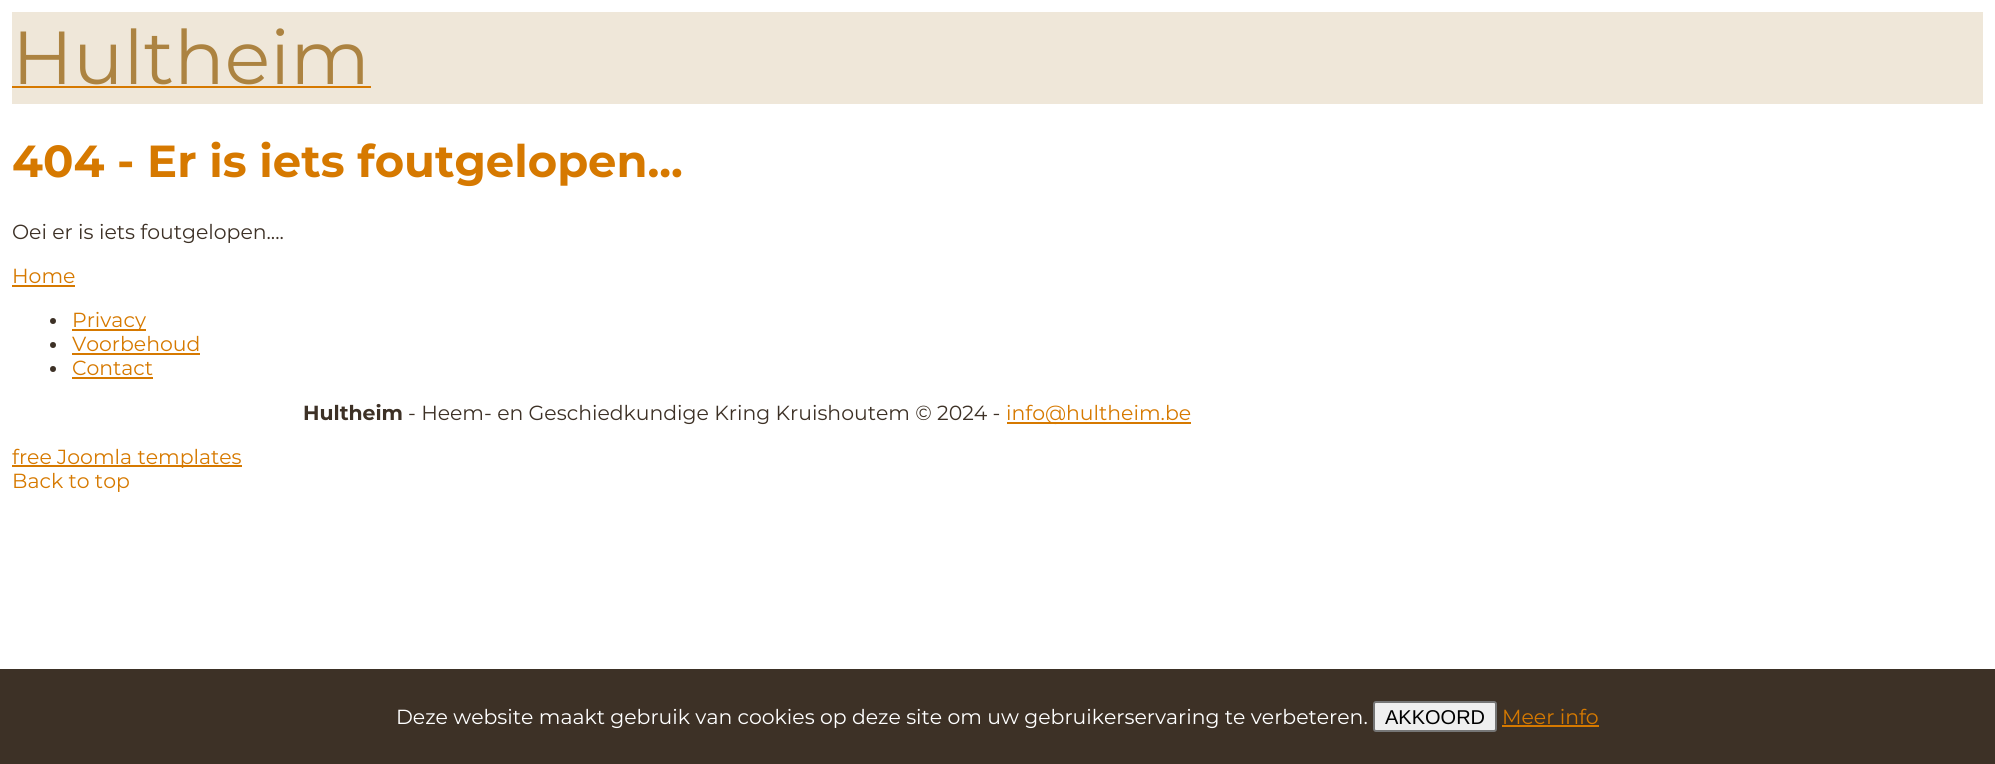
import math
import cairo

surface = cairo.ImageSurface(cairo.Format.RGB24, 1995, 764)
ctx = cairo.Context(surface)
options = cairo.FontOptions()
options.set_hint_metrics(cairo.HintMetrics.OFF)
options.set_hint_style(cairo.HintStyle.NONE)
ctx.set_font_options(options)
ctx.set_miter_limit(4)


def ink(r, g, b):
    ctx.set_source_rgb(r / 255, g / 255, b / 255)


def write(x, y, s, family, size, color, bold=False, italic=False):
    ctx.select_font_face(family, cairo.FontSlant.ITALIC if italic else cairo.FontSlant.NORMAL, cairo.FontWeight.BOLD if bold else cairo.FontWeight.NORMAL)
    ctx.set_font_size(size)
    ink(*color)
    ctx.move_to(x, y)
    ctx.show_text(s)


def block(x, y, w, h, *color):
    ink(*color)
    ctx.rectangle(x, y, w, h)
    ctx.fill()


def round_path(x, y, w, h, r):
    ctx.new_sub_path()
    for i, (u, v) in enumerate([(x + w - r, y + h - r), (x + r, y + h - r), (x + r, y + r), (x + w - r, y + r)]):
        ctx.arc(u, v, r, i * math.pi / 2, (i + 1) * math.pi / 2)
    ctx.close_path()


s1 = dict(family="Montserrat Thin", size=75, color=(172, 131, 65))
s2 = dict(family="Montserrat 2 Thin", size=44.9, color=(214, 121, 0))
s3 = dict(family="Montserrat Thin", size=20.4, color=(61, 49, 38))
s4 = dict(family="Montserrat Thin", size=20.4, color=(214, 121, 0))
s5 = dict(family="Montserrat 2 Thin", size=20.4, color=(61, 49, 38))
s6 = dict(family="Montserrat Thin", size=20.4, color=(255, 255, 255))
s7 = dict(family="Liberation Sans", size=20, color=(0, 0, 0))

ink(255, 255, 255)
ctx.paint()
block(12, 12, 1971, 92, 239, 231, 217)
write(12, 84, "Hultheim", **s1)
block(12, 86, 359, 2, 214, 121, 0)
write(12, 177, "404 - Er is iets foutgelopen...", **s2)
write(12, 239, "Oei er is iets foutgelopen....", **s3)
write(12, 283, "Home", **s4)
block(12, 285, 63, 2, 214, 121, 0)
ink(61, 49, 38)
ctx.new_path()
ctx.arc(53, 321, 3, 0, 2 * math.pi)
ctx.fill()
block(72, 329, 74, 2, 214, 121, 0)
write(72, 327, "Privacy", **s4)
ink(61, 49, 38)
ctx.new_path()
ctx.arc(53, 345, 3, 0, 2 * math.pi)
ctx.fill()
write(72, 351, "Voorbehoud", **s4)
block(72, 353, 128, 2, 214, 121, 0)
ink(61, 49, 38)
ctx.new_path()
ctx.arc(53, 369, 3, 0, 2 * math.pi)
ctx.fill()
write(72, 375, "Contact", **s4)
block(72, 377, 81, 2, 214, 121, 0)
write(303, 420, "Hultheim", **s5)
write(408, 420, "- Heem- en Geschiedkundige Kring Kruishoutem © 2024 -", **s3)
block(1007, 422, 184, 2, 214, 121, 0)
write(1006, 420, "info@hultheim.be", **s4)
block(12, 465, 230, 2, 214, 121, 0)
write(12, 464, "free Joomla templates", **s4)
write(12, 488, "Back to top", **s4)
block(0, 669, 1995, 95, 61, 49, 38)
write(396, 724, "Deze website maakt gebruik van cookies op deze site om uw gebruikerservaring te verbeteren.", **s6)
ink(239, 239, 239)
round_path(1374, 702, 122, 29, 2)
ctx.fill_preserve()
ink(118, 118, 118)
ctx.stroke()
write(1385, 724, "AKKOORD", **s7)
write(1502, 724, "Meer info", **s4)
block(1502, 725, 97, 2, 214, 121, 0)
surface.write_to_png("screenshot.png")
